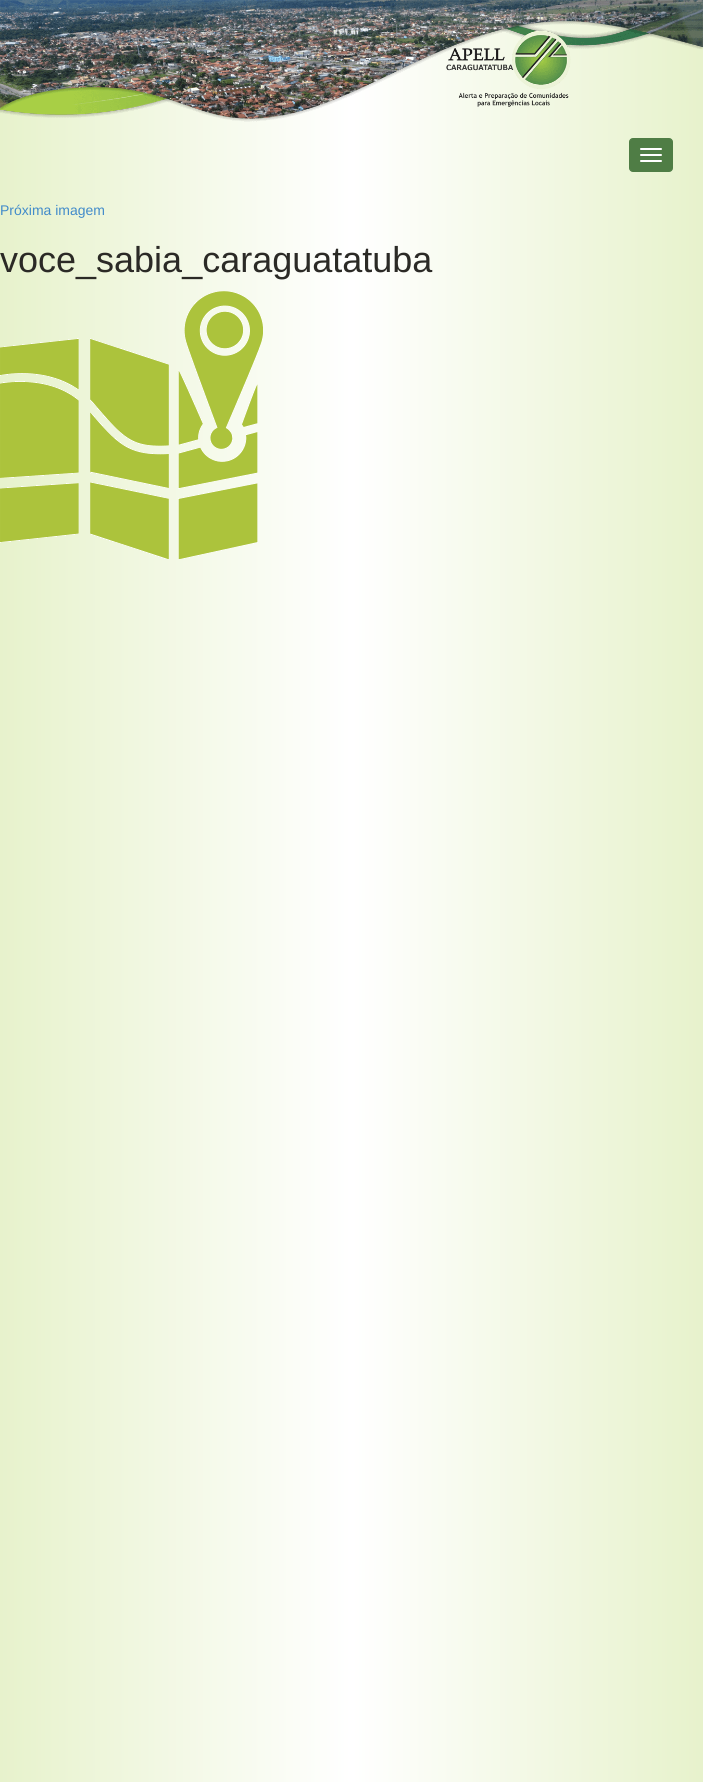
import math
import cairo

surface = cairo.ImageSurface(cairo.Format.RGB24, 703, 1782)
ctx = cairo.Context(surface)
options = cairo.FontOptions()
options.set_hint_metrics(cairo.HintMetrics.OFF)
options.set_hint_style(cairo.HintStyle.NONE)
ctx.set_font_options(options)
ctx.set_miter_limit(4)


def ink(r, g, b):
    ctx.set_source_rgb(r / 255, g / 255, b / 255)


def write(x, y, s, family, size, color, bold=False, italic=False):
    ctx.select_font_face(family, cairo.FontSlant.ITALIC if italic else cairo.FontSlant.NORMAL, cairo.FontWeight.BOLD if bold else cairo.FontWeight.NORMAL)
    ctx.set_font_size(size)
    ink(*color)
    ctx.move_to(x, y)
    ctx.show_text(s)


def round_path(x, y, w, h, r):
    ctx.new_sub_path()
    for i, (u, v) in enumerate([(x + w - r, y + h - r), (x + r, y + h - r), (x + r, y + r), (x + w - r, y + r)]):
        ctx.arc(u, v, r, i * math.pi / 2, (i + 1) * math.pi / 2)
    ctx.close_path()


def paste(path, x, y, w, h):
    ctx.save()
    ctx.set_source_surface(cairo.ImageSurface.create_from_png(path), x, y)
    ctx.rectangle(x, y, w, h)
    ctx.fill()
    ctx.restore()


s1 = dict(family="Liberation Sans", size=14, color=(66, 139, 202))
s2 = dict(family="Liberation Sans", size=36, color=(43, 42, 38))

ink(255, 255, 255)
ctx.paint()
gradient = cairo.LinearGradient(0, 280, 703, 280)
gradient.add_color_stop_rgba(0, 0.906, 0.949, 0.8, 1)
gradient.add_color_stop_rgba(0.5, 1, 1, 1, 1)
gradient.add_color_stop_rgba(1, 0.906, 0.949, 0.8, 1)
ctx.set_source(gradient)
ctx.rectangle(0, 0, 703, 1782)
ctx.fill()
paste("pic1.png", 0, 0, 703, 122)
ink(79, 125, 69)
round_path(629.5, 138.5, 43, 33, 3.5)
ctx.fill_preserve()
ctx.set_line_width(1)
ctx.stroke()
ink(255, 255, 255)
round_path(640, 148, 22, 2, 1)
ctx.fill()
round_path(640, 154, 22, 2, 1)
ctx.fill()
round_path(640, 160, 22, 2, 1)
ctx.fill()
write(0, 215, "Próxima imagem", **s1)
write(0, 272, "voce_sabia_caraguatatuba", **s2)
paste("pic2.png", 0, 291, 263, 268)
surface.write_to_png("screenshot.png")
